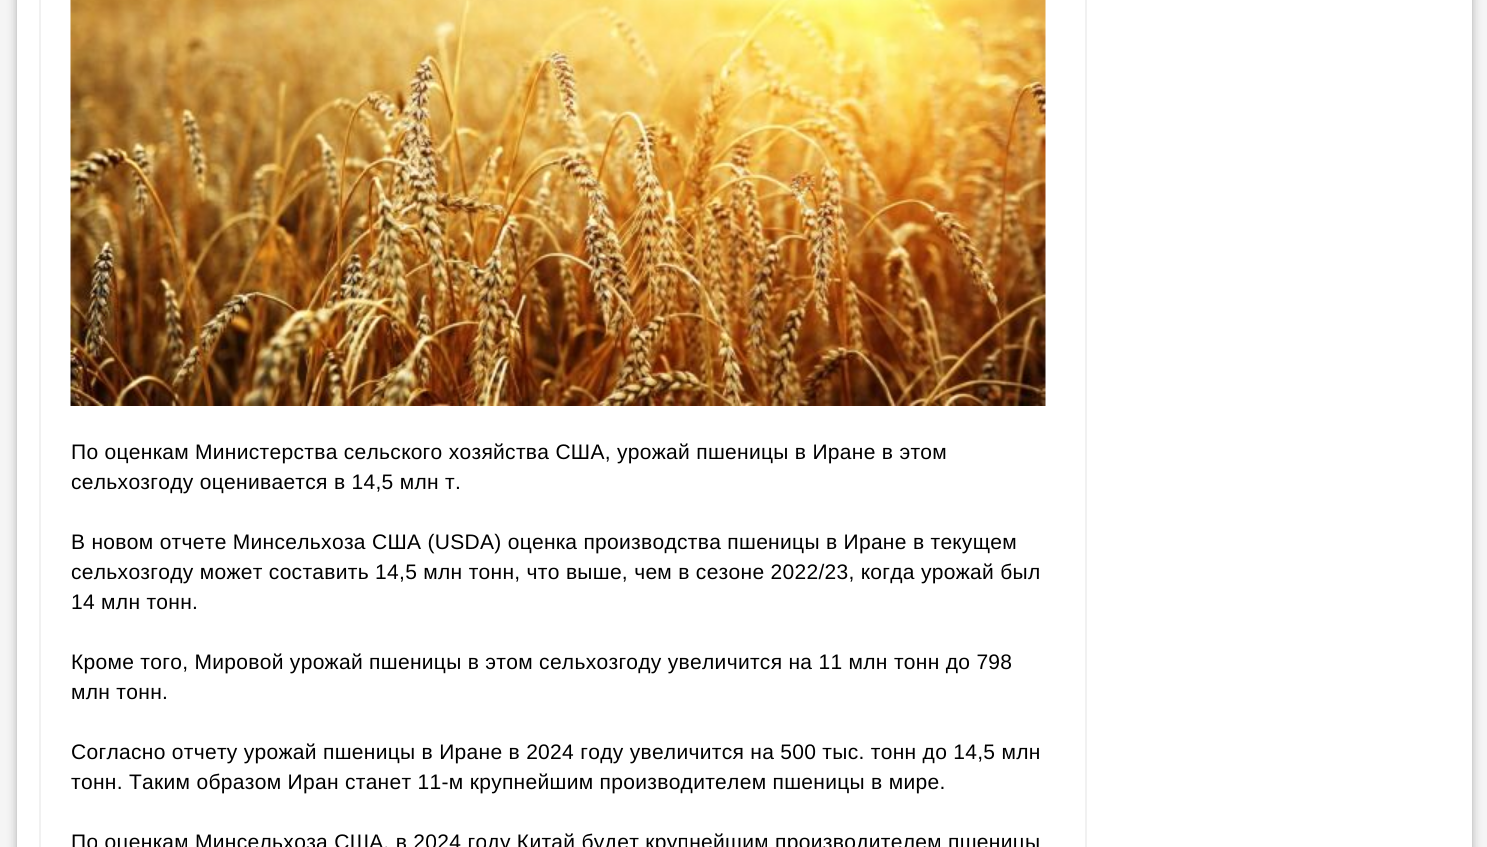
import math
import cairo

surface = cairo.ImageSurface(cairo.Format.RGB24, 1487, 847)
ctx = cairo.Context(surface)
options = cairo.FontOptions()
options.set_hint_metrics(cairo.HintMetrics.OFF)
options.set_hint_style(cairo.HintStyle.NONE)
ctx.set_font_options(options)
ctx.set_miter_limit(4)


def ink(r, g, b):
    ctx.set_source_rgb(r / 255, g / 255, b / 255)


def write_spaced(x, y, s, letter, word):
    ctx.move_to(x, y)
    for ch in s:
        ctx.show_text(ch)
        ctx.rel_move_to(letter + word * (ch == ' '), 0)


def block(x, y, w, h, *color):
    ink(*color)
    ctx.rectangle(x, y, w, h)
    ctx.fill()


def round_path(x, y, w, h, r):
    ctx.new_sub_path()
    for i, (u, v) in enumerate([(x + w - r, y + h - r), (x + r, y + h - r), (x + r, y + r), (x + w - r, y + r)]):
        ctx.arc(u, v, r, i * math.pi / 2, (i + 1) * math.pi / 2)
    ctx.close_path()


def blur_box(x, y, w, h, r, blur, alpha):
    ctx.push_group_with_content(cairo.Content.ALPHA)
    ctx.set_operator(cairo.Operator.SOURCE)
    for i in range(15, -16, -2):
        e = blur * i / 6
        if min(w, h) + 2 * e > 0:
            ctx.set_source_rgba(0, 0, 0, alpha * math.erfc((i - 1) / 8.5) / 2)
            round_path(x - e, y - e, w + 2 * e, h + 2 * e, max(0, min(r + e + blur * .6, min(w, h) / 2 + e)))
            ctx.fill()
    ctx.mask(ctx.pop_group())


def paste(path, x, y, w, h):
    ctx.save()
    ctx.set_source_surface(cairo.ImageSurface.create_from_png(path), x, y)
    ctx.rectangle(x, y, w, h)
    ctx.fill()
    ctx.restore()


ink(245, 245, 245)
ctx.paint()
ink(0, 0, 0)
blur_box(17, -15, 1455, 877, 0, 5, 0.3)
block(17, 0, 1455, 847, 255, 255, 255)
block(1085, 0, 2, 847, 241, 241, 241)
block(39, 0, 2, 847, 241, 241, 241)
paste("pic1.png", 70, 0, 976, 406)
ctx.select_font_face("Liberation Sans")
ctx.set_font_size(21)
ink(0, 0, 0)
write_spaced(71, 459, "По оценкам Министерства сельского хозяйства США, урожай пшеницы в Иране в этом", 0.3, 0)
write_spaced(71, 489, "сельхозгоду оценивается в 14,5 млн т.", 0.3, 0)
write_spaced(71, 549, "В новом отчете Минсельхоза США (USDA) оценка производства пшеницы в Иране в текущем", 0.3, 0)
write_spaced(71, 579, "сельхозгоду может составить 14,5 млн тонн, что выше, чем в сезоне 2022/23, когда урожай был", 0.3, 0)
write_spaced(71, 609, "14 млн тонн.", 0.3, 0)
write_spaced(71, 669, "Кроме того, Мировой урожай пшеницы в этом сельхозгоду увеличится на 11 млн тонн до 798", 0.3, 0)
write_spaced(71, 699, "млн тонн.", 0.3, 0)
write_spaced(71, 759, "Согласно отчету урожай пшеницы в Иране в 2024 году увеличится на 500 тыс. тонн до 14,5 млн", 0.3, 0)
write_spaced(71, 789, "тонн. Таким образом Иран станет 11-м крупнейшим производителем пшеницы в мире.", 0.3, 0)
write_spaced(71, 849, "По оценкам Минсельхоза США, в 2024 году Китай будет крупнейшим производителем пшеницы", 0.3, 0)
surface.write_to_png("screenshot.png")
